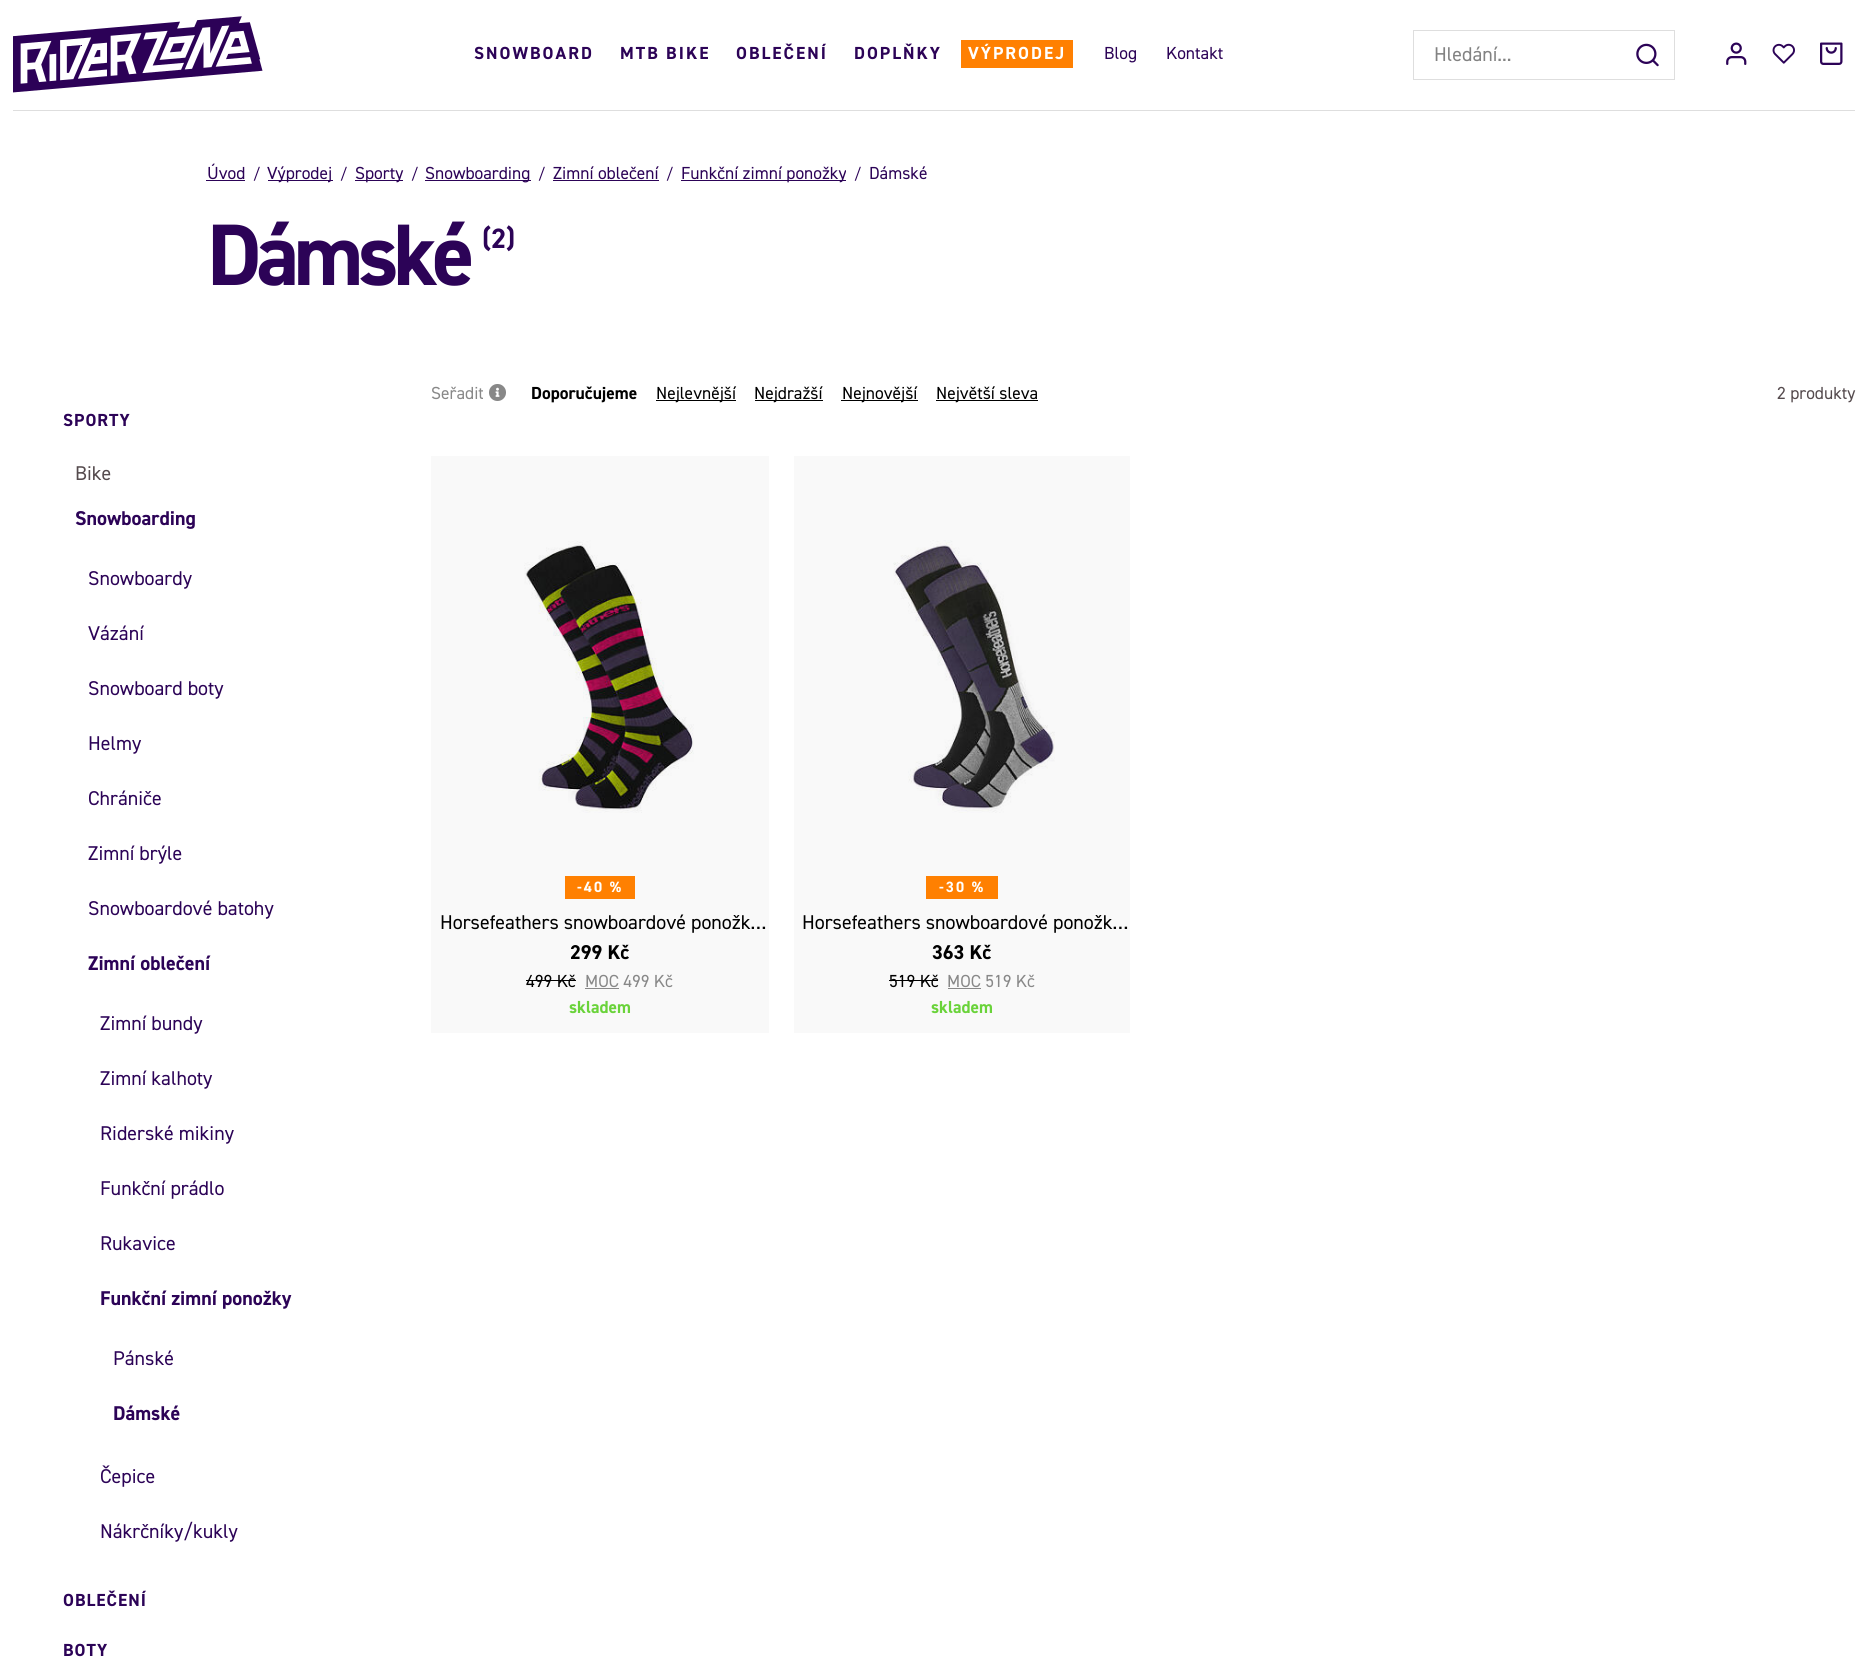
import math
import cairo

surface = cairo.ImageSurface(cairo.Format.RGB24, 1867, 1667)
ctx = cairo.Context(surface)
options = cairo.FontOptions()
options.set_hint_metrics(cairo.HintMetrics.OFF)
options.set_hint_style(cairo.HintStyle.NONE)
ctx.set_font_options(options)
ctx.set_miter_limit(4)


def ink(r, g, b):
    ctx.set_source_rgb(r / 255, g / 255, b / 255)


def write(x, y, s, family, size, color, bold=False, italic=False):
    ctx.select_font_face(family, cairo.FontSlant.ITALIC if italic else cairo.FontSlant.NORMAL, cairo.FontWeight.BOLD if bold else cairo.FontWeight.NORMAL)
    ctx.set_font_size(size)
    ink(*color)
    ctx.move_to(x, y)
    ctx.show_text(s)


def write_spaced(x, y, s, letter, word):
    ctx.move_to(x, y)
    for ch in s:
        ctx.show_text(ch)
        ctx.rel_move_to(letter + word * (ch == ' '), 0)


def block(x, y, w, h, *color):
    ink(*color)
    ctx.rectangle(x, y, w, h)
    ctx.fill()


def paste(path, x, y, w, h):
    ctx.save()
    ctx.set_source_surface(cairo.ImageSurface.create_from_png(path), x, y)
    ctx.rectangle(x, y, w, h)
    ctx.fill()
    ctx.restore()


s1 = dict(family="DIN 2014", size=17.5, color=(44, 3, 87))
s2 = dict(family="DIN 2014", size=20, color=(130, 130, 130))
s3 = dict(family="DIN 2014", size=15, color=(44, 3, 87))
s4 = dict(family="DIN 2014", size=28, color=(44, 3, 87), bold=True)
s5 = dict(family="DIN 2014", size=20, color=(85, 75, 78))
s6 = dict(family="DIN 2014", size=20, color=(44, 3, 87), bold=True)
s7 = dict(family="DIN 2014", size=20, color=(44, 3, 87))
s8 = dict(family="DIN 2014", size=17.5, color=(136, 136, 136))
s9 = dict(family="DIN 2014", size=17.5, color=(0, 0, 0), bold=True)
s10 = dict(family="DIN 2014", size=17.5, color=(0, 0, 0))
s11 = dict(family="DIN 2014", size=17.5, color=(85, 75, 78))
s12 = dict(family="DIN 2014", size=20, color=(0, 0, 0))
s13 = dict(family="DIN 2014", size=20, color=(0, 0, 0), bold=True)
s14 = dict(family="DIN 2014", size=17.5, color=(106, 211, 58), bold=True)

ink(255, 255, 255)
ctx.paint()
paste("pic1.png", 13, 16, 250, 77)
ctx.select_font_face("DIN 2014", cairo.FontSlant.NORMAL, cairo.FontWeight.BOLD)
ctx.set_font_size(17.5)
ink(44, 3, 87)
write_spaced(474, 59, "SNOWBOARD", 2, 0)
write_spaced(620, 59, "MTB BIKE", 2, 0)
write_spaced(736, 59, "OBLEČENÍ", 2, 0)
write_spaced(854, 59, "DOPLŇKY", 2, 0)
block(961, 40, 112, 28, 255, 128, 1)
ink(255, 255, 255)
write_spaced(968, 59, "VÝPRODEJ", 2, 0)
write(1104, 59, "Blog", **s1)
write(1166, 59, "Kontakt", **s1)
ctx.rectangle(1413.5, 30.5, 261, 49)
ink(222, 222, 222)
ctx.set_line_width(1)
ctx.stroke()
write(1434, 61, "Hledání...", **s2)
paste("pic2.png", 1636, 43, 23, 24)
paste("pic3.png", 1726, 42, 21, 23)
paste("pic4.png", 1772, 43, 23, 21)
paste("pic5.png", 1820, 42, 23, 23)
block(13, 110, 1842, 1, 222, 222, 222)
write(207, 179, "Úvod", **s1)
block(206, 180, 39, 1, 44, 3, 87)
write(253, 179, "/", **s3)
block(268, 180, 65, 1, 44, 3, 87)
write(267, 179, "Výprodej", **s1)
write(340, 179, "/", **s3)
block(355, 180, 48, 1, 44, 3, 87)
write(355, 179, "Sporty", **s1)
write(411, 179, "/", **s3)
block(425, 180, 106, 1, 44, 3, 87)
write(425, 179, "Snowboarding", **s1)
write(538, 179, "/", **s3)
write(553, 179, "Zimní oblečení", **s1)
block(553, 180, 106, 1, 44, 3, 87)
write(666, 179, "/", **s3)
block(681, 180, 165, 1, 44, 3, 87)
write(681, 179, "Funkční zimní ponožky", **s1)
write(854, 179, "/", **s3)
write(869, 179, "Dámské", **s1)
ctx.select_font_face("DIN 2014", cairo.FontSlant.NORMAL, cairo.FontWeight.BOLD)
ctx.set_font_size(87.5)
write_spaced(207, 285, "Dámské", -5.25, 0)
write(482, 248, "(2)", **s4)
ctx.set_font_size(17.5)
write_spaced(63, 426, "SPORTY", 1, 0)
write(75, 480, "Bike", **s5)
write(75, 525, "Snowboarding", **s6)
write(88, 585, "Snowboardy", **s7)
write(88, 640, "Vázání", **s7)
write(88, 695, "Snowboard boty", **s7)
write(88, 750, "Helmy", **s7)
write(88, 805, "Chrániče", **s7)
write(88, 860, "Zimní brýle", **s7)
write(88, 915, "Snowboardové batohy", **s7)
write(88, 970, "Zimní oblečení", **s6)
write(100, 1030, "Zimní bundy", **s7)
write(100, 1085, "Zimní kalhoty", **s7)
write(100, 1140, "Riderské mikiny", **s7)
write(100, 1195, "Funkční prádlo", **s7)
write(100, 1250, "Rukavice", **s7)
write(100, 1305, "Funkční zimní ponožky", **s6)
write(113, 1365, "Pánské", **s7)
write(113, 1420, "Dámské", **s6)
write(100, 1483, "Čepice", **s7)
write(100, 1538, "Nákrčníky/kukly", **s7)
ctx.select_font_face("DIN 2014", cairo.FontSlant.NORMAL, cairo.FontWeight.BOLD)
ctx.set_font_size(17.5)
write_spaced(63, 1606, "OBLEČENÍ", 1, 0)
write_spaced(63, 1656, "BOTY", 1, 0)
write(431, 399, "Seřadit", **s8)
paste("pic6.png", 489, 384, 17, 17)
write(531, 399, "Doporučujeme", **s9)
block(656, 400, 80, 1, 0, 0, 0)
write(656, 399, "Nejlevnější", **s10)
block(755, 400, 68, 1, 0, 0, 0)
write(754, 399, "Nejdražší", **s10)
block(841, 400, 77, 1, 0, 0, 0)
write(842, 399, "Nejnovější", **s10)
block(936, 400, 102, 1, 0, 0, 0)
write(936, 399, "Největší sleva", **s10)
write(1777, 399, "2 produkty", **s11)
block(431, 456, 338, 577, 249, 249, 249)
paste("pic7.png", 524, 540, 170, 273)
block(565, 876, 70, 23, 255, 128, 1)
ctx.select_font_face("DIN 2014", cairo.FontSlant.NORMAL, cairo.FontWeight.BOLD)
ctx.set_font_size(15)
ink(255, 255, 255)
write_spaced(577, 892, "-40 %", 2, 0)
write(440, 929, "Horsefeathers snowboardové ponožk…", **s12)
write(570, 959, "299 Kč", **s13)
write(526, 987, "499 Kč", **s10)
block(526, 980, 50, 1, 0, 0, 0)
write(585, 987, "MOC 499 Kč", **s8)
block(585, 988, 34, 1, 136, 136, 136)
write(569, 1013, "skladem", **s14)
block(794, 456, 336, 577, 249, 249, 249)
paste("pic8.png", 893, 540, 162, 273)
block(926, 876, 72, 23, 255, 128, 1)
ctx.set_font_size(15)
ink(255, 255, 255)
write_spaced(939, 892, "-30 %", 2, 0)
write(802, 929, "Horsefeathers snowboardové ponožk…", **s12)
write(932, 959, "363 Kč", **s13)
write(889, 987, "519 Kč", **s10)
block(889, 980, 49, 1, 0, 0, 0)
write(947, 987, "MOC 519 Kč", **s8)
block(948, 988, 33, 1, 136, 136, 136)
write(931, 1013, "skladem", **s14)
surface.write_to_png("screenshot.png")
